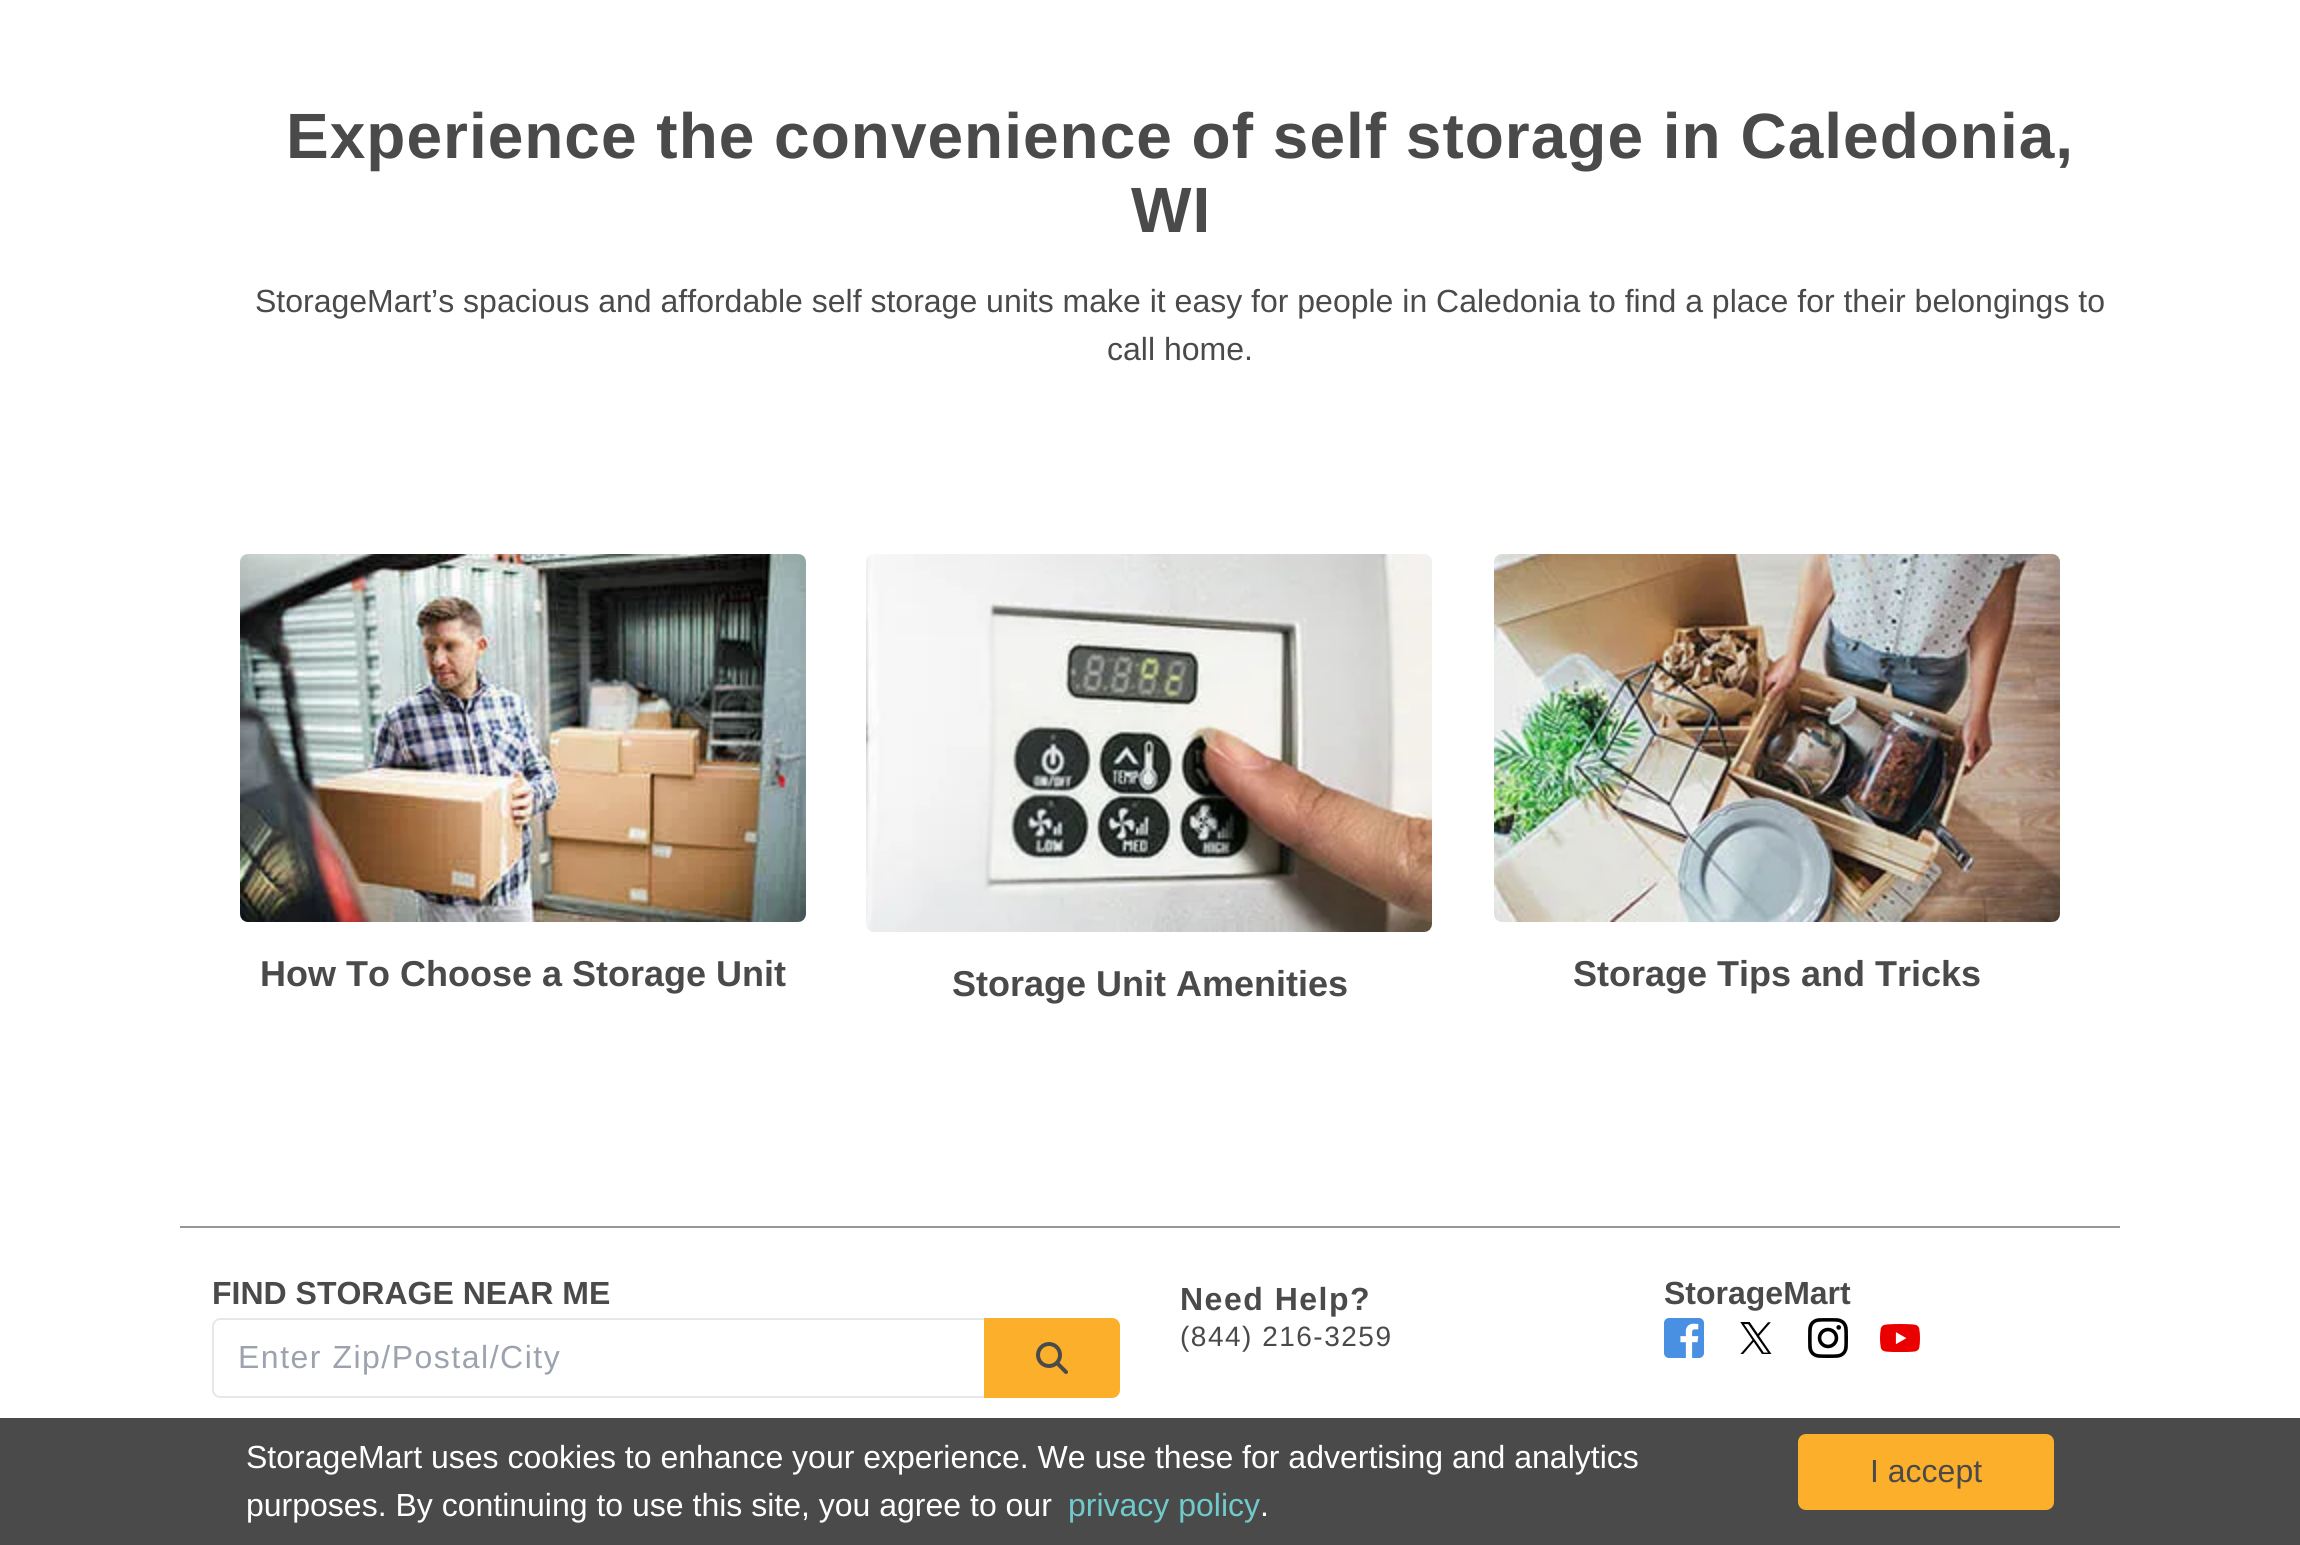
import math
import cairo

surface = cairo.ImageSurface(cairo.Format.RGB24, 2300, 1545)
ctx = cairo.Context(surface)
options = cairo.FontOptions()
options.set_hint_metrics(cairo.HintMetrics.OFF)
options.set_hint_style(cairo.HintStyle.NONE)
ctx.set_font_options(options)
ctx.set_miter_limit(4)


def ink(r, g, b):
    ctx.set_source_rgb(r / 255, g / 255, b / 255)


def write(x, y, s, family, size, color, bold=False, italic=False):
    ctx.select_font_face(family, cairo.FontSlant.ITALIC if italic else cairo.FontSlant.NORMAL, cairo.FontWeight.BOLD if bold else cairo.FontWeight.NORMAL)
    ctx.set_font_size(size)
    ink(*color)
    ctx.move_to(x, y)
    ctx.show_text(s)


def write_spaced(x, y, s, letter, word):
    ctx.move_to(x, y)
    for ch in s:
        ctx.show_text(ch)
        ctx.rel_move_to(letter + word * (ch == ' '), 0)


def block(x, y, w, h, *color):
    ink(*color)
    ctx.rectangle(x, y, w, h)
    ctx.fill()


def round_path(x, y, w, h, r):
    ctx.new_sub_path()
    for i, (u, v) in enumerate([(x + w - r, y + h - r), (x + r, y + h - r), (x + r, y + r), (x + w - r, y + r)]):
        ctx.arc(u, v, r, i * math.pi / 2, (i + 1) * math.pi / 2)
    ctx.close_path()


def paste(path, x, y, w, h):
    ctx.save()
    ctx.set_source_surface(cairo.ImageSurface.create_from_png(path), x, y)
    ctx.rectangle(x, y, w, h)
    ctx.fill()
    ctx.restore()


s1 = dict(family="Liberation Sans", size=32, color=(74, 74, 74))
s2 = dict(family="Liberation Sans", size=36, color=(74, 74, 74), bold=True)
s3 = dict(family="Liberation Sans", size=32, color=(74, 74, 74), bold=True)
s4 = dict(family="Liberation Sans", size=32, color=(255, 255, 255))
s5 = dict(family="Liberation Sans", size=32, color=(112, 202, 203))

ink(255, 255, 255)
ctx.paint()
ctx.select_font_face("Liberation Sans", cairo.FontSlant.NORMAL, cairo.FontWeight.BOLD)
ctx.set_font_size(64)
ink(74, 74, 74)
write_spaced(286, 158, "Experience the convenience of self storage in Caledonia,", 1, 0)
write_spaced(1131, 232, "WI", 1, 0)
write(255, 312, "StorageMart’s spacious and affordable self storage units make it easy for people in Caledonia to find a place for their belongings to", **s1)
write(1107, 360, "call home.", **s1)
paste("pic1.png", 240, 554, 566, 368)
write(260, 986, "How To Choose a Storage Unit", **s2)
paste("pic2.png", 866, 554, 566, 378)
write(952, 996, "Storage Unit Amenities", **s2)
paste("pic3.png", 1494, 554, 566, 368)
write(1573, 986, "Storage Tips and Tricks", **s2)
block(180, 1226, 1940, 2, 151, 151, 151)
write(212, 1304, "FIND STORAGE NEAR ME", **s3)
ink(229, 231, 235)
ctx.set_fill_rule(cairo.FillRule.EVEN_ODD)
ctx.new_path()
ctx.move_to(220, 1318)
ctx.line_to(984, 1318)
ctx.line_to(984, 1398)
ctx.line_to(220, 1398)
ctx.curve_to(216, 1398, 212, 1394, 212, 1390)
ctx.line_to(212, 1326)
ctx.curve_to(212, 1322, 216, 1318, 220, 1318)
ctx.close_path()
ctx.move_to(220, 1320)
ctx.line_to(984, 1320)
ctx.line_to(984, 1396)
ctx.line_to(220, 1396)
ctx.curve_to(217, 1396, 214, 1393, 214, 1390)
ctx.line_to(214, 1326)
ctx.curve_to(214, 1323, 217, 1320, 220, 1320)
ctx.close_path()
ctx.fill()
ctx.select_font_face("Liberation Sans")
ink(156, 163, 175)
write_spaced(238, 1368, "Enter Zip/Postal/City", 1.5, 0)
ink(252, 175, 43)
ctx.new_path()
ctx.move_to(984, 1318)
ctx.line_to(1112, 1318)
ctx.curve_to(1116.5, 1318, 1120, 1321.5, 1120, 1326)
ctx.line_to(1120, 1390)
ctx.curve_to(1120, 1394.5, 1116.5, 1398, 1112, 1398)
ctx.line_to(984, 1398)
ctx.close_path()
ctx.fill()
paste("pic4.png", 1036, 1342, 32, 32)
ctx.select_font_face("Liberation Sans", cairo.FontSlant.NORMAL, cairo.FontWeight.BOLD)
ink(74, 74, 74)
write_spaced(1180, 1310, "Need Help?", 1.5, 0)
ctx.select_font_face("Liberation Sans")
ctx.set_font_size(28)
write_spaced(1180, 1346, "(844) 216-3259", 1.5, 0)
write(1664, 1304, "StorageMart", **s3)
paste("pic5.png", 1664, 1318, 40, 40)
paste("pic6.png", 1740, 1322, 32, 32)
paste("pic7.png", 1808, 1318, 40, 40)
paste("pic8.png", 1880, 1324, 40, 28)
block(0, 1418, 2300, 127, 74, 74, 74)
write(246, 1468, "StorageMart uses cookies to enhance your experience. We use these for advertising and analytics", **s4)
write(246, 1516, "purposes. By continuing to use this site, you agree to our", **s4)
write(1068, 1516, "privacy policy", **s5)
write(1260, 1516, ".", **s4)
ink(252, 175, 43)
round_path(1798, 1434, 256, 76, 8)
ctx.fill()
write(1870, 1482, "I accept", **s1)
surface.write_to_png("screenshot.png")
